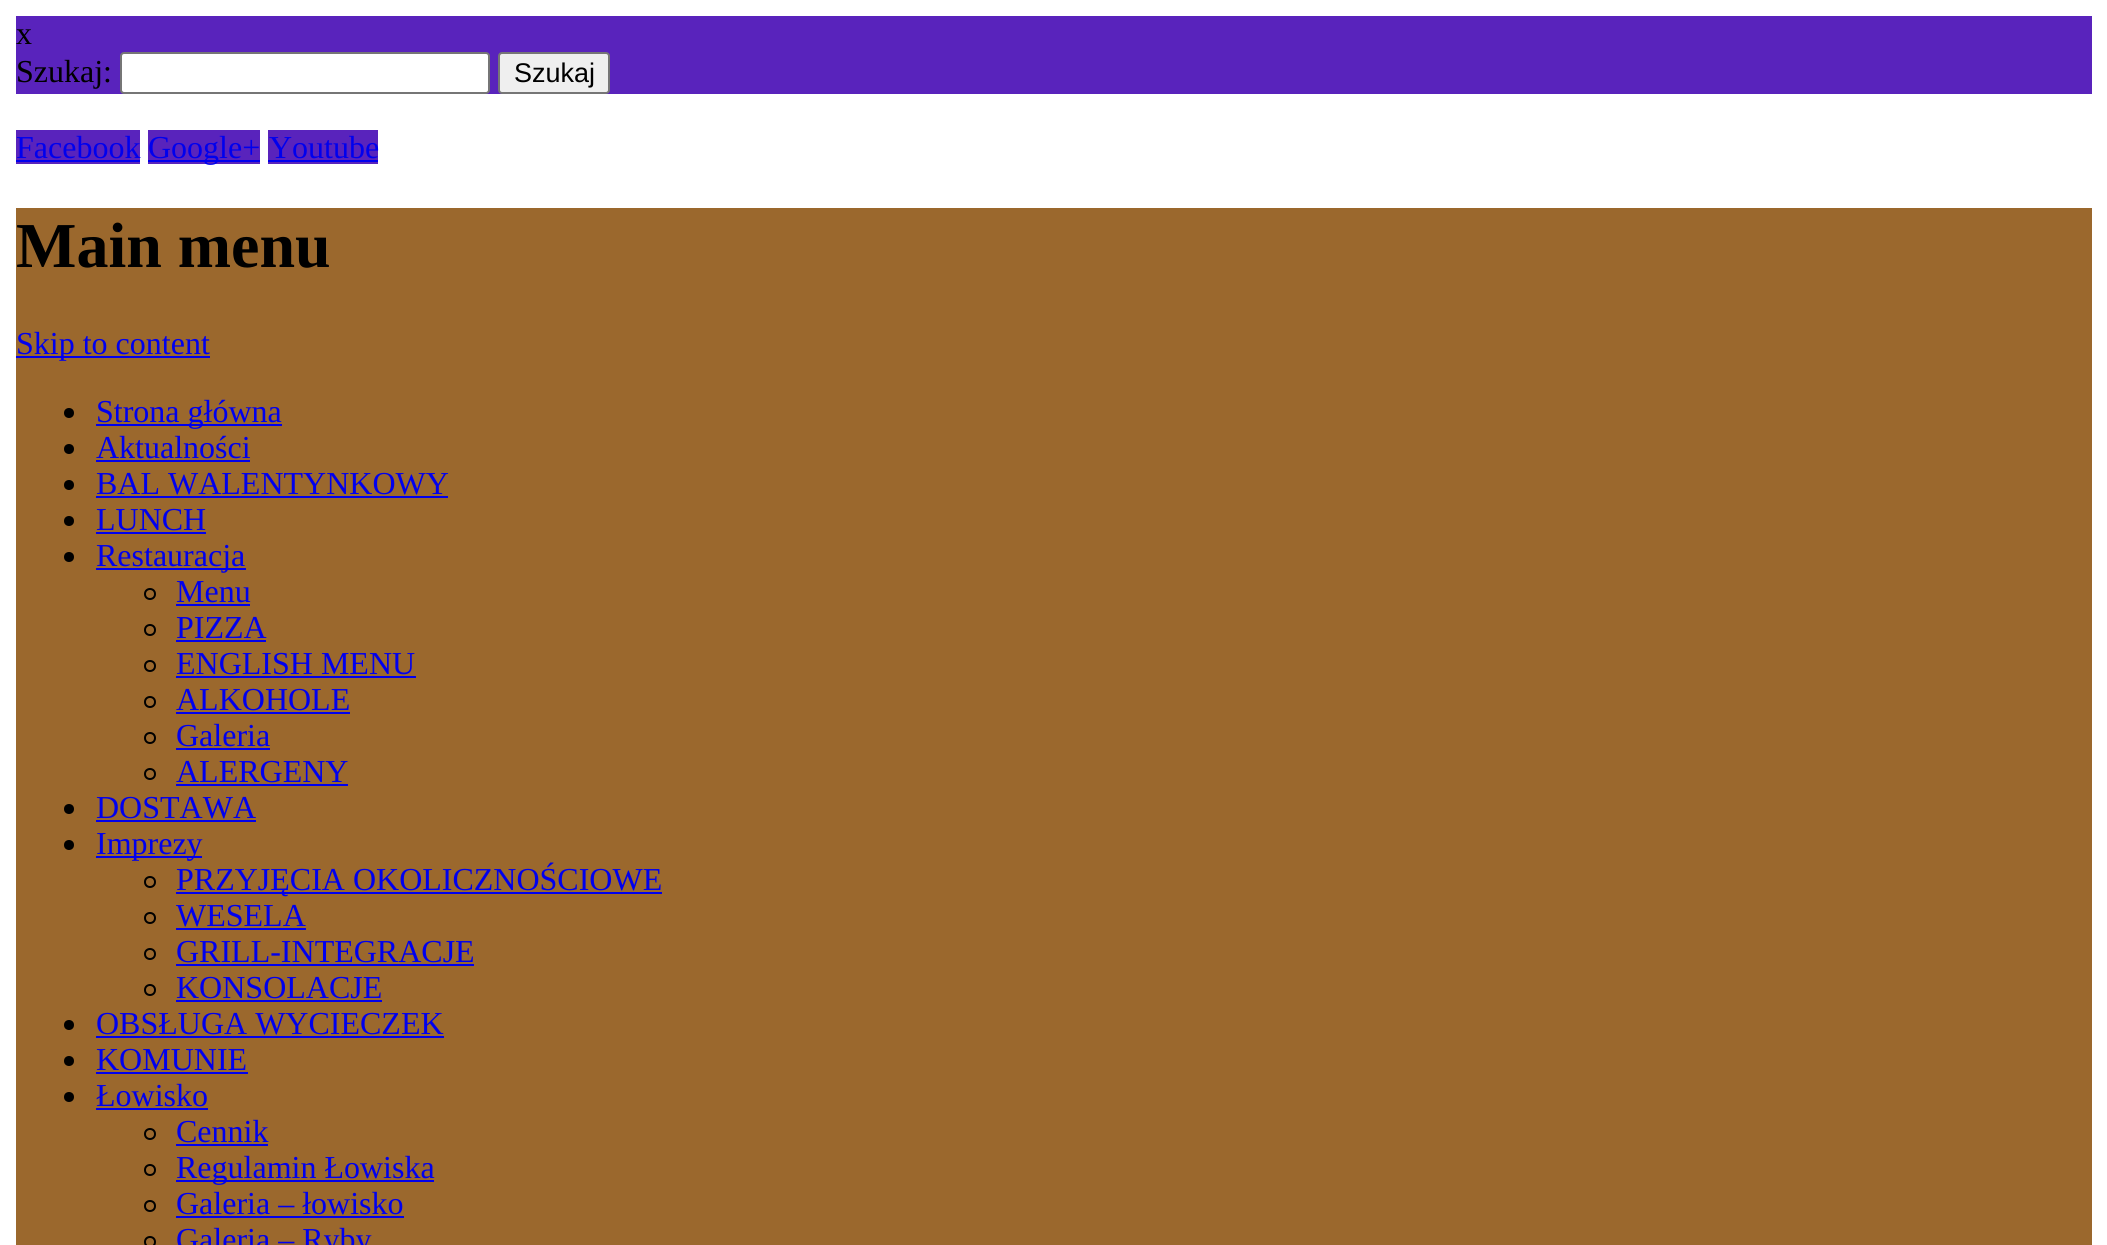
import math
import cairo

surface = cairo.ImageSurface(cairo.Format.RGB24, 2107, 1245)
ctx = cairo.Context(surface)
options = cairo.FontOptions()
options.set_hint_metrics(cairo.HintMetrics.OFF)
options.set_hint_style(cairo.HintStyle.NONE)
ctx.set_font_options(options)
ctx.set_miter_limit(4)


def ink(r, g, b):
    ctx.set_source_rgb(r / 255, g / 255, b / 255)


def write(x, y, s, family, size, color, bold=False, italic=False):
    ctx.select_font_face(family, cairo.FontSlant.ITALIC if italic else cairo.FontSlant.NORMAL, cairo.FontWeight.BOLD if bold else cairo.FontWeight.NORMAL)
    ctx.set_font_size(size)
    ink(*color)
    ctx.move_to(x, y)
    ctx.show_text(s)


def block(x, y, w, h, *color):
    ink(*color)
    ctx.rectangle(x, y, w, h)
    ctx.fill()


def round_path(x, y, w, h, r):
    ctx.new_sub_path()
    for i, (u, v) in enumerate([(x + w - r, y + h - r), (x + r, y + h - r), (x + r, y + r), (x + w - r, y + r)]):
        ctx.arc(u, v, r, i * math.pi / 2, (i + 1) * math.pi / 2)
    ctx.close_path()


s1 = dict(family="Liberation Serif", size=32, color=(0, 0, 0))
s2 = dict(family="Liberation Sans", size=27, color=(0, 0, 0))
s3 = dict(family="Liberation Serif", size=32, color=(0, 0, 238))
s4 = dict(family="Liberation Serif", size=64, color=(0, 0, 0), bold=True)

ink(255, 255, 255)
ctx.paint()
block(16, 16, 2076, 78, 89, 35, 188)
write(16, 44, "x", **s1)
write(16, 82, "Szukaj:", **s1)
ink(255, 255, 255)
round_path(121, 53, 368, 40, 3)
ctx.fill_preserve()
ink(118, 118, 118)
ctx.stroke()
ink(239, 239, 239)
round_path(499, 53, 110, 40, 3)
ctx.fill_preserve()
ink(118, 118, 118)
ctx.stroke()
write(514, 82, "Szukaj", **s2)
block(16, 130, 124, 34, 89, 35, 188)
write(16, 158, "Facebook", **s3)
block(16, 160, 124, 2, 0, 0, 238)
block(148, 130, 112, 34, 89, 35, 188)
block(148, 160, 112, 2, 0, 0, 238)
write(148, 158, "Google+", **s3)
block(268, 130, 110, 34, 89, 35, 188)
write(269, 158, "Youtube", **s3)
block(268, 160, 110, 2, 0, 0, 238)
block(16, 208, 2076, 1037, 155, 104, 45)
write(16, 267, "Main menu", **s4)
block(16, 356, 194, 2, 0, 0, 238)
write(16, 354, "Skip to content", **s3)
ink(0, 0, 0)
ctx.new_path()
ctx.arc(69, 413, 5, 0, 2 * math.pi)
ctx.fill()
block(96, 424, 186, 2, 0, 0, 238)
write(96, 422, "Strona główna", **s3)
ink(0, 0, 0)
ctx.new_path()
ctx.arc(69, 449, 5, 0, 2 * math.pi)
ctx.fill()
write(96, 458, "Aktualności", **s3)
block(96, 460, 154, 2, 0, 0, 238)
ink(0, 0, 0)
ctx.new_path()
ctx.arc(69, 485, 5, 0, 2 * math.pi)
ctx.fill()
write(96, 494, "BAL WALENTYNKOWY", **s3)
block(96, 496, 352, 2, 0, 0, 238)
ink(0, 0, 0)
ctx.new_path()
ctx.arc(69, 521, 5, 0, 2 * math.pi)
ctx.fill()
write(96, 530, "LUNCH", **s3)
block(96, 532, 110, 2, 0, 0, 238)
ink(0, 0, 0)
ctx.new_path()
ctx.arc(69, 557, 5, 0, 2 * math.pi)
ctx.fill()
block(96, 568, 150, 2, 0, 0, 238)
write(96, 566, "Restauracja", **s3)
ctx.new_path()
ctx.arc(150, 594, 5, 0, 2 * math.pi)
ink(0, 0, 0)
ctx.stroke()
write(176, 602, "Menu", **s3)
block(176, 604, 74, 2, 0, 0, 238)
ctx.new_path()
ctx.arc(150, 630, 5, 0, 2 * math.pi)
ink(0, 0, 0)
ctx.stroke()
write(176, 638, "PIZZA", **s3)
block(176, 640, 90, 2, 0, 0, 238)
ctx.new_path()
ctx.arc(150, 666, 5, 0, 2 * math.pi)
ink(0, 0, 0)
ctx.stroke()
write(176, 674, "ENGLISH MENU", **s3)
block(176, 676, 240, 2, 0, 0, 238)
ctx.new_path()
ctx.arc(150, 702, 5, 0, 2 * math.pi)
ink(0, 0, 0)
ctx.stroke()
write(176, 710, "ALKOHOLE", **s3)
block(176, 712, 174, 2, 0, 0, 238)
ctx.new_path()
ctx.arc(150, 738, 5, 0, 2 * math.pi)
ink(0, 0, 0)
ctx.stroke()
write(176, 746, "Galeria", **s3)
block(176, 748, 94, 2, 0, 0, 238)
ctx.new_path()
ctx.arc(150, 774, 5, 0, 2 * math.pi)
ink(0, 0, 0)
ctx.stroke()
write(176, 782, "ALERGENY", **s3)
block(176, 784, 172, 2, 0, 0, 238)
ink(0, 0, 0)
ctx.new_path()
ctx.arc(69, 809, 5, 0, 2 * math.pi)
ctx.fill()
write(96, 818, "DOSTAWA", **s3)
block(96, 820, 160, 2, 0, 0, 238)
ink(0, 0, 0)
ctx.new_path()
ctx.arc(69, 845, 5, 0, 2 * math.pi)
ctx.fill()
block(96, 856, 106, 2, 0, 0, 238)
write(96, 854, "Imprezy", **s3)
ctx.new_path()
ctx.arc(150, 882, 5, 0, 2 * math.pi)
ink(0, 0, 0)
ctx.stroke()
block(176, 892, 486, 2, 0, 0, 238)
write(176, 890, "PRZYJĘCIA OKOLICZNOŚCIOWE", **s3)
ctx.new_path()
ctx.arc(150, 918, 5, 0, 2 * math.pi)
ink(0, 0, 0)
ctx.stroke()
write(176, 926, "WESELA", **s3)
block(176, 928, 130, 2, 0, 0, 238)
ctx.new_path()
ctx.arc(150, 954, 5, 0, 2 * math.pi)
ink(0, 0, 0)
ctx.stroke()
write(176, 962, "GRILL-INTEGRACJE", **s3)
block(176, 964, 298, 2, 0, 0, 238)
ctx.new_path()
ctx.arc(150, 990, 5, 0, 2 * math.pi)
ink(0, 0, 0)
ctx.stroke()
write(176, 998, "KONSOLACJE", **s3)
block(176, 1000, 206, 2, 0, 0, 238)
ink(0, 0, 0)
ctx.new_path()
ctx.arc(69, 1025, 5, 0, 2 * math.pi)
ctx.fill()
write(96, 1034, "OBSŁUGA WYCIECZEK", **s3)
block(96, 1036, 348, 2, 0, 0, 238)
ink(0, 0, 0)
ctx.new_path()
ctx.arc(69, 1061, 5, 0, 2 * math.pi)
ctx.fill()
write(96, 1070, "KOMUNIE", **s3)
block(96, 1072, 152, 2, 0, 0, 238)
ink(0, 0, 0)
ctx.new_path()
ctx.arc(69, 1097, 5, 0, 2 * math.pi)
ctx.fill()
write(96, 1106, "Łowisko", **s3)
block(96, 1108, 112, 2, 0, 0, 238)
ctx.new_path()
ctx.arc(150, 1134, 5, 0, 2 * math.pi)
ink(0, 0, 0)
ctx.stroke()
write(176, 1142, "Cennik", **s3)
block(176, 1144, 92, 2, 0, 0, 238)
ctx.new_path()
ctx.arc(150, 1170, 5, 0, 2 * math.pi)
ink(0, 0, 0)
ctx.stroke()
block(176, 1180, 258, 2, 0, 0, 238)
write(176, 1178, "Regulamin Łowiska", **s3)
ctx.new_path()
ctx.arc(150, 1206, 5, 0, 2 * math.pi)
ink(0, 0, 0)
ctx.stroke()
write(176, 1214, "Galeria – łowisko", **s3)
block(176, 1216, 228, 2, 0, 0, 238)
ctx.new_path()
ctx.arc(150, 1242, 5, 0, 2 * math.pi)
ink(0, 0, 0)
ctx.stroke()
write(176, 1250, "Galeria – Ryby", **s3)
surface.write_to_png("screenshot.png")
